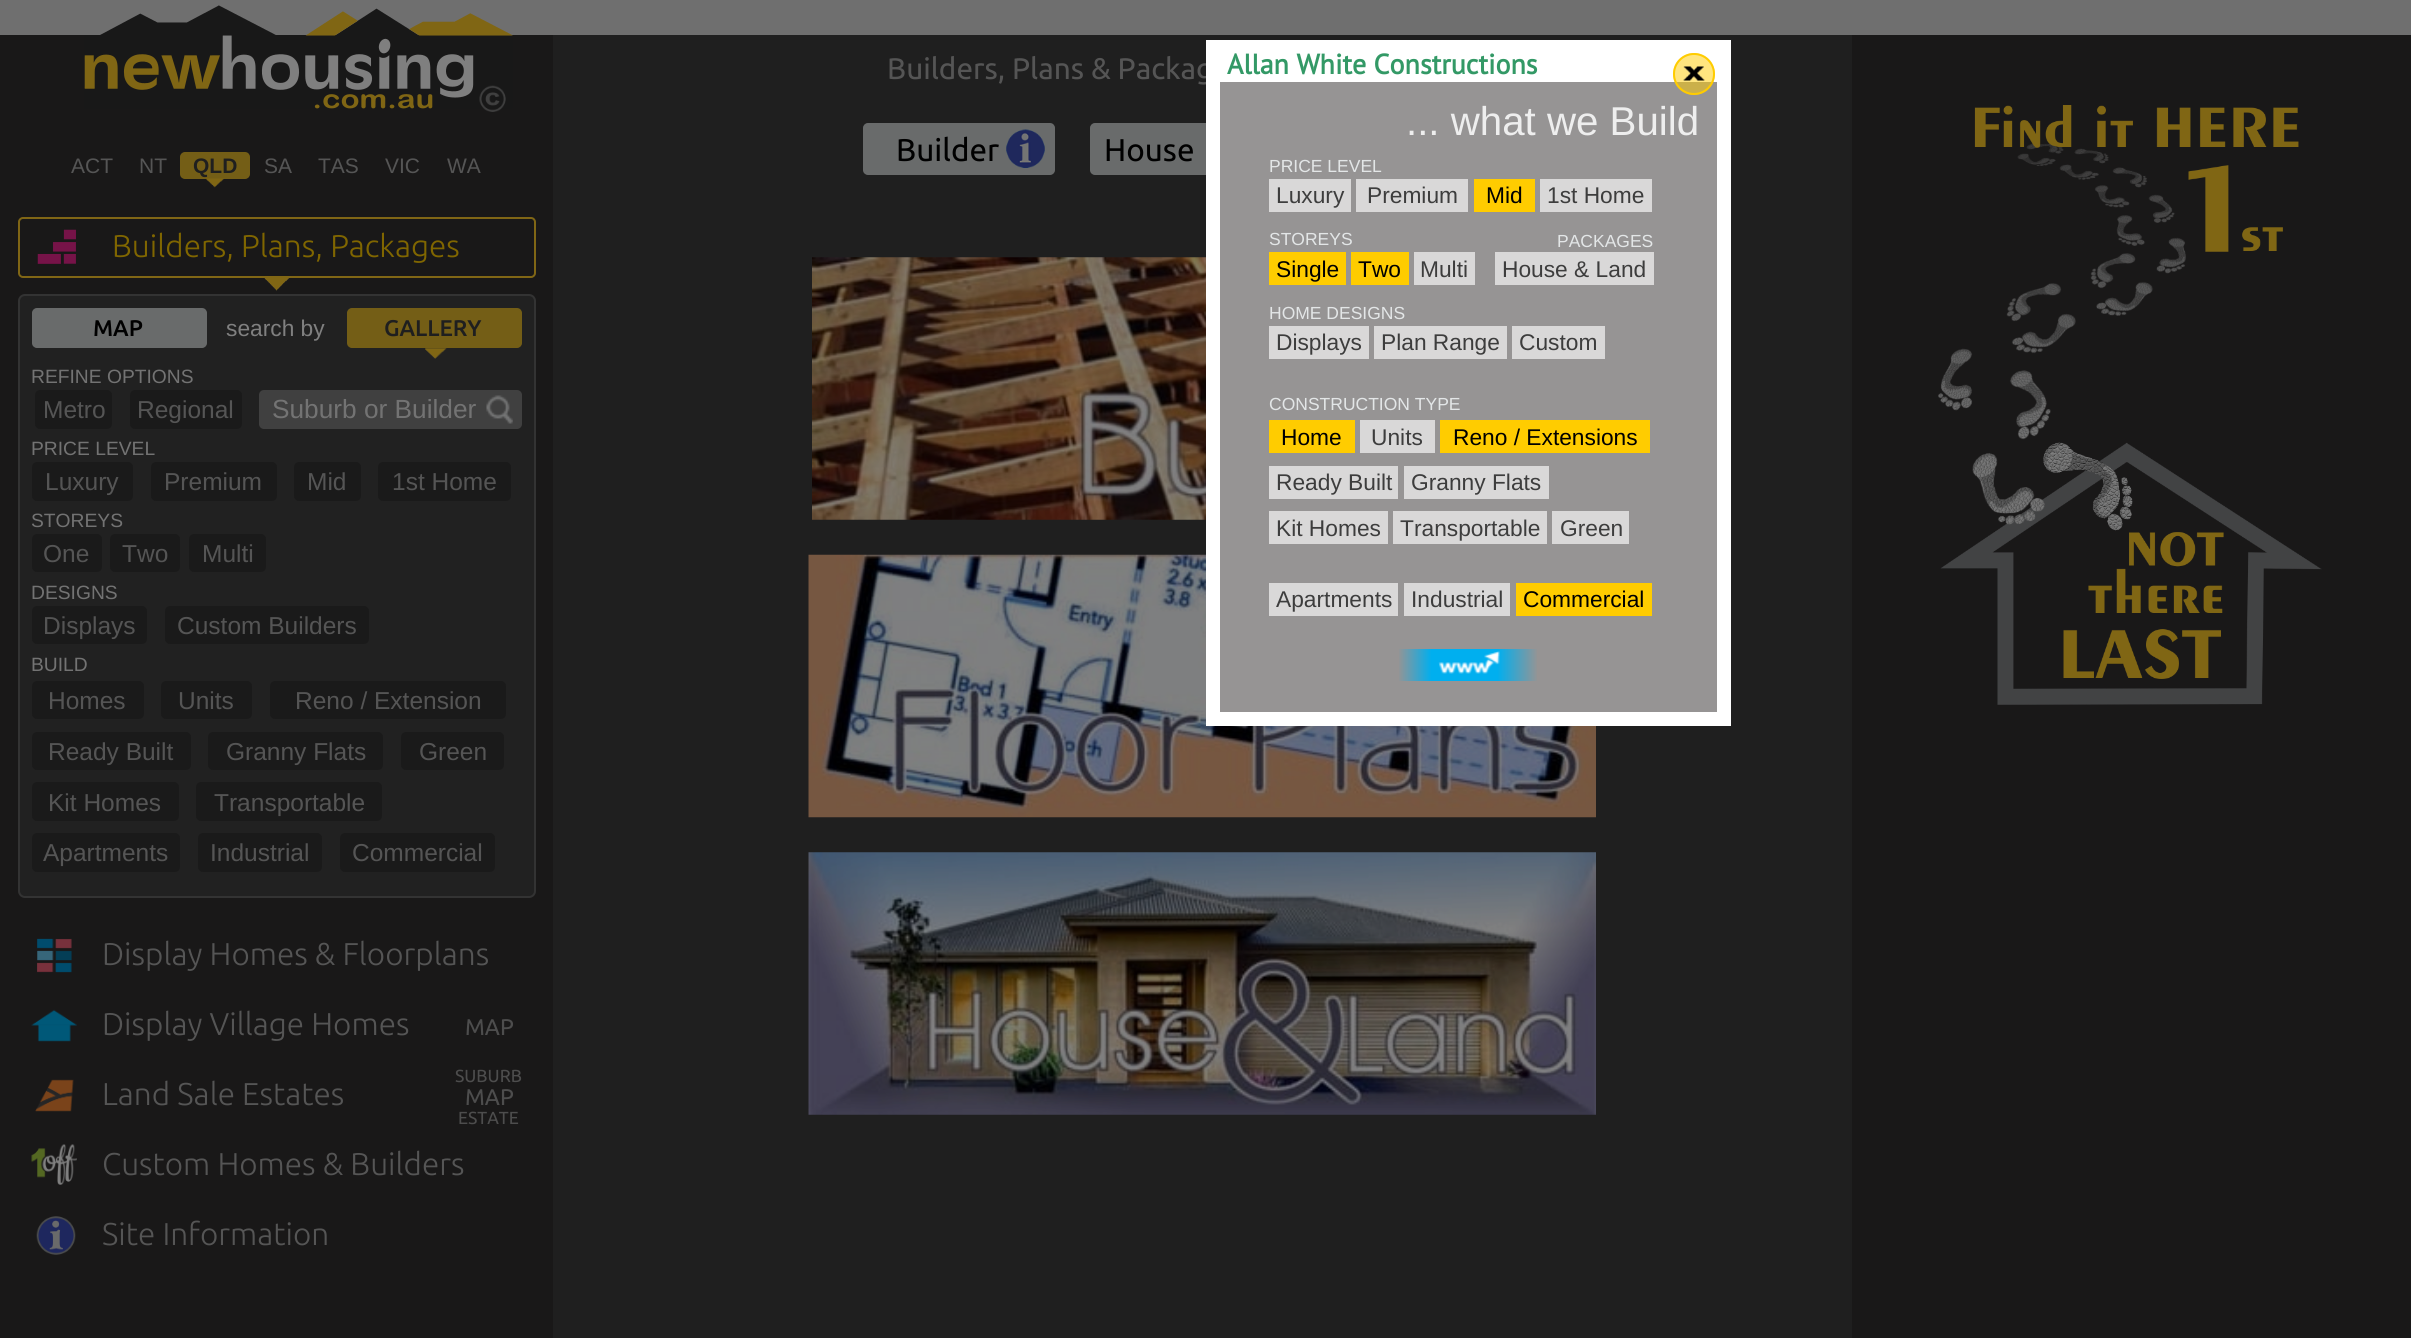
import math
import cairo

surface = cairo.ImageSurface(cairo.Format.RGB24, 2411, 1338)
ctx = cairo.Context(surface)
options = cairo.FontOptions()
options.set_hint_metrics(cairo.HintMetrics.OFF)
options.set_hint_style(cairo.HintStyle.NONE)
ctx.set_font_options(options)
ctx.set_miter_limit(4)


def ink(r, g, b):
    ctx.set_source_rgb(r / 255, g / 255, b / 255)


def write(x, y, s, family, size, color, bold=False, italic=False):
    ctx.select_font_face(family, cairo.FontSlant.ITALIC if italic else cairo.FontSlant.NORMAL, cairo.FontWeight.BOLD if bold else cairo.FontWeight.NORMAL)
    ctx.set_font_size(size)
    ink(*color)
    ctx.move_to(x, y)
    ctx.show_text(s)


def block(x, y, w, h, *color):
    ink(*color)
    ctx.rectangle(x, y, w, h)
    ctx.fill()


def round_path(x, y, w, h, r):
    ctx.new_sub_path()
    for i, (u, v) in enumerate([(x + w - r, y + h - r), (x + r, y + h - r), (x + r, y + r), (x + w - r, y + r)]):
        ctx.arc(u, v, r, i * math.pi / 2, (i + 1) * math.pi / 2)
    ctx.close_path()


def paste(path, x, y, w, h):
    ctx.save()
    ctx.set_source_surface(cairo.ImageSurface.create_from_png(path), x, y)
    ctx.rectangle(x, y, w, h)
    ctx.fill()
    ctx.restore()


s1 = dict(family="Ubuntu", size=29.75, color=(85, 85, 85))
s2 = dict(family="Ubuntu", size=31.5, color=(0, 0, 0))
s3 = dict(family="Liberation Sans", size=21, color=(85, 85, 85))
s4 = dict(family="Liberation Sans", size=21, color=(31, 31, 31), bold=True)
s5 = dict(family="Ubuntu Light", size=31.5, color=(128, 102, 0))
s6 = dict(family="Ubuntu Medium", size=22.75, color=(0, 0, 0))
s7 = dict(family="Liberation Sans", size=22.75, color=(128, 128, 128))
s8 = dict(family="Ubuntu Medium", size=22.75, color=(31, 31, 31))
s9 = dict(family="Liberation Sans", size=19.25, color=(115, 115, 115))
s10 = dict(family="Liberation Sans", size=24.5, color=(85, 85, 85))
s11 = dict(family="Liberation Sans", size=26.25, color=(115, 115, 115))
s12 = dict(family="Ubuntu Light", size=31.5, color=(85, 85, 85))
s13 = dict(family="Ubuntu", size=22.75, color=(77, 77, 77))
s14 = dict(family="Ubuntu", size=17.5, color=(77, 77, 77))
s15 = dict(family="PT Sans", size=28, color=(51, 153, 102), bold=True)
s16 = dict(family="Liberation Sans", size=40.25, color=(238, 238, 238))
s17 = dict(family="Liberation Sans", size=17.5, color=(227, 230, 231))
s18 = dict(family="Liberation Sans", size=22.75, color=(61, 61, 61))
s19 = dict(family="Liberation Sans", size=22.75, color=(0, 0, 0))

ink(25, 24, 24)
ctx.paint()
block(0, 0, 2411, 35, 111, 111, 111)
block(553, 35, 1299, 1303, 31, 31, 31)
write(887, 79, "Builders, Plans & Packag", **s1)
ink(105, 107, 107)
round_path(864, 124, 190, 50, 4)
ctx.fill_preserve()
ctx.stroke()
write(896, 161, "Builder", **s2)
paste("pic1.png", 1006, 129, 39, 39)
ink(105, 107, 107)
round_path(1091, 124, 222, 50, 4)
ctx.fill_preserve()
ctx.stroke()
write(1104, 161, "House", **s2)
paste("pic2.png", 812, 257, 394, 263)
paste("pic3.png", 808, 554, 788, 264)
paste("pic4.png", 808, 852, 788, 263)
paste("pic5.png", 1938, 105, 384, 600)
paste("pic6.png", 84, 5, 429, 104)
paste("pic7.png", 479, 85, 27, 27)
write(71, 173, "ACT", **s3)
write(139, 173, "NT", **s3)
ink(116, 94, 22)
round_path(181, 153, 68, 25, 4)
ctx.fill_preserve()
ctx.stroke()
write(193, 173, "QLD", **s4)
paste("pic8.png", 206, 178, 18, 10)
write(264, 173, "SA", **s3)
write(318, 173, "TAS", **s3)
write(385, 173, "VIC", **s3)
write(447, 173, "WA", **s3)
paste("pic9.png", 37, 229, 39, 35)
round_path(19, 218, 516, 59, 4)
ink(128, 102, 21)
ctx.stroke()
write(112, 257, "Builders, Plans, Packages", **s5)
paste("pic10.png", 264, 276, 27, 15)
ink(33, 33, 33)
round_path(19, 295, 516, 602, 6)
ctx.fill_preserve()
ink(51, 51, 51)
ctx.stroke()
ink(105, 107, 107)
round_path(33, 309, 173, 38, 4)
ctx.fill_preserve()
ctx.stroke()
write(93, 336, "MAP", **s6)
write(226, 336, "search by", **s7)
ink(116, 94, 22)
round_path(348, 309, 173, 38, 4)
ctx.fill_preserve()
ctx.stroke()
write(384, 336, "GALLERY", **s8)
paste("pic11.png", 425, 348, 22, 11)
write(31, 383, "REFINE OPTIONS", **s9)
ink(26, 26, 26)
round_path(35, 390, 77, 39, 5)
ctx.fill()
write(43, 418, "Metro", **s10)
ink(26, 26, 26)
round_path(130, 390, 112, 39, 5)
ctx.fill()
write(137, 418, "Regional", **s10)
ink(64, 64, 64)
round_path(259, 390, 263, 39, 5)
ctx.fill()
paste("pic12.png", 486, 395, 27, 29)
write(272, 418, "Suburb or Builder", **s11)
write(31, 455, "PRICE LEVEL", **s9)
ink(26, 26, 26)
round_path(32, 462, 101, 39, 5)
ctx.fill()
write(45, 490, "Luxury", **s10)
ink(26, 26, 26)
round_path(151, 462, 126, 39, 5)
ctx.fill()
write(164, 490, "Premium", **s10)
ink(26, 26, 26)
round_path(294, 462, 67, 39, 5)
ctx.fill()
write(307, 490, "Mid", **s10)
ink(26, 26, 26)
round_path(378, 462, 133, 39, 5)
ctx.fill()
write(392, 490, "1st Home", **s10)
write(31, 527, "STOREYS", **s9)
ink(26, 26, 26)
round_path(32, 534, 70, 38, 5)
ctx.fill()
write(43, 562, "One", **s10)
ink(26, 26, 26)
round_path(110, 534, 70, 38, 5)
ctx.fill()
write(122, 562, "Two", **s10)
ink(26, 26, 26)
round_path(189, 534, 77, 38, 5)
ctx.fill()
write(202, 562, "Multi", **s10)
write(31, 599, "DESIGNS", **s9)
ink(26, 26, 26)
round_path(32, 606, 115, 38, 5)
ctx.fill()
write(43, 634, "Displays", **s10)
ink(26, 26, 26)
round_path(165, 606, 204, 38, 5)
ctx.fill()
write(177, 634, "Custom Builders", **s10)
write(31, 671, "BUILD", **s9)
ink(26, 26, 26)
round_path(32, 681, 112, 38, 5)
ctx.fill()
write(48, 709, "Homes", **s10)
ink(26, 26, 26)
round_path(161, 681, 91, 38, 5)
ctx.fill()
write(178, 709, "Units", **s10)
ink(26, 26, 26)
round_path(270, 681, 236, 38, 5)
ctx.fill()
write(295, 709, "Reno / Extension", **s10)
ink(26, 26, 26)
round_path(32, 732, 159, 38, 5)
ctx.fill()
write(48, 760, "Ready Built", **s10)
ink(26, 26, 26)
round_path(208, 732, 175, 38, 5)
ctx.fill()
write(226, 760, "Granny Flats", **s10)
ink(26, 26, 26)
round_path(401, 732, 103, 38, 5)
ctx.fill()
write(419, 760, "Green", **s10)
ink(26, 26, 26)
round_path(32, 782, 147, 39, 5)
ctx.fill()
write(48, 811, "Kit Homes", **s10)
ink(26, 26, 26)
round_path(196, 782, 186, 39, 5)
ctx.fill()
write(214, 811, "Transportable", **s10)
ink(26, 26, 26)
round_path(32, 833, 148, 39, 5)
ctx.fill()
write(43, 861, "Apartments", **s10)
ink(26, 26, 26)
round_path(198, 833, 124, 39, 5)
ctx.fill()
write(210, 861, "Industrial", **s10)
ink(26, 26, 26)
round_path(340, 833, 155, 39, 5)
ctx.fill()
write(352, 861, "Commercial", **s10)
paste("pic13.png", 37, 938, 35, 35)
write(102, 965, "Display Homes & Floorplans", **s12)
paste("pic14.png", 31, 1009, 46, 33)
write(102, 1035, "Display Village Homes", **s12)
write(465, 1035, "MAP", **s13)
paste("pic15.png", 35, 1079, 39, 33)
write(455, 1082, "SUBURB", **s14)
write(102, 1105, "Land Sale Estates", **s12)
write(465, 1105, "MAP", **s13)
write(458, 1124, "ESTATE", **s14)
paste("pic16.png", 31, 1144, 46, 41)
write(102, 1175, "Custom Homes & Builders", **s12)
paste("pic17.png", 36, 1216, 40, 39)
write(102, 1245, "Site Information", **s12)
block(1206, 40, 525, 686, 255, 255, 255)
write(1227, 74, "Allan White Constructions", **s15)
block(1220, 82, 497, 630, 150, 148, 148)
ctx.set_source_rgba(1, 0.8, 0, 0.5)
ctx.new_path()
ctx.arc(1694, 74, 21, 0, 2 * math.pi)
ctx.fill()
paste("pic18.png", 1683, 66, 22, 15)
ctx.arc(1694, 74, 20, 0, 2 * math.pi)
ink(255, 204, 0)
ctx.stroke()
write(1406, 135, "... what we Build", **s16)
write(1269, 172, "PRICE LEVEL", **s17)
block(1269, 179, 82, 33, 217, 216, 216)
write(1276, 203, "Luxury", **s18)
block(1356, 179, 112, 33, 217, 216, 216)
write(1367, 203, "Premium", **s18)
block(1474, 179, 61, 33, 255, 204, 0)
write(1486, 203, "Mid", **s19)
block(1540, 179, 112, 33, 217, 216, 216)
write(1547, 203, "1st Home", **s18)
write(1269, 245, "STOREYS", **s17)
write(1557, 247, "PACKAGES", **s17)
block(1269, 252, 77, 33, 255, 204, 0)
write(1276, 277, "Single", **s19)
block(1351, 252, 58, 33, 255, 204, 0)
write(1358, 277, "Two", **s19)
block(1414, 252, 61, 33, 217, 216, 216)
write(1420, 277, "Multi", **s18)
block(1495, 252, 159, 33, 217, 216, 216)
write(1502, 277, "House & Land", **s18)
write(1269, 319, "HOME DESIGNS", **s17)
block(1269, 326, 100, 33, 217, 216, 216)
write(1276, 350, "Displays", **s18)
block(1374, 326, 133, 33, 217, 216, 216)
write(1381, 350, "Plan Range", **s18)
block(1512, 326, 93, 33, 217, 216, 216)
write(1519, 350, "Custom", **s18)
write(1269, 410, "CONSTRUCTION TYPE", **s17)
block(1269, 420, 86, 33, 255, 204, 0)
write(1281, 445, "Home", **s19)
block(1360, 420, 75, 33, 217, 216, 216)
write(1371, 445, "Units", **s18)
block(1440, 420, 210, 33, 255, 204, 0)
write(1453, 445, "Reno / Extensions", **s19)
block(1269, 466, 129, 33, 217, 216, 216)
write(1276, 490, "Ready Built", **s18)
block(1404, 466, 145, 33, 217, 216, 216)
write(1411, 490, "Granny Flats", **s18)
block(1269, 511, 119, 33, 217, 216, 216)
write(1276, 536, "Kit Homes", **s18)
block(1393, 511, 154, 33, 217, 216, 216)
write(1400, 536, "Transportable", **s18)
block(1552, 511, 77, 33, 217, 216, 216)
write(1560, 536, "Green", **s18)
block(1269, 583, 129, 33, 217, 216, 216)
write(1276, 607, "Apartments", **s18)
block(1404, 583, 106, 33, 217, 216, 216)
write(1411, 607, "Industrial", **s18)
block(1516, 583, 136, 33, 255, 204, 0)
write(1523, 607, "Commercial", **s19)
gradient = cairo.LinearGradient(1398, 665, 1538, 665)
gradient.add_color_stop_rgba(0, 0.588, 0.58, 0.58, 1)
gradient.add_color_stop_rgba(0.24, 0, 0.686, 0.937, 1)
gradient.add_color_stop_rgba(0.71, 0, 0.686, 0.937, 1)
gradient.add_color_stop_rgba(1, 0.588, 0.58, 0.58, 1)
ctx.set_source(gradient)
ctx.rectangle(1399, 649, 138, 32)
ctx.fill()
paste("pic19.png", 1438, 651, 62, 23)
surface.write_to_png("screenshot.png")
